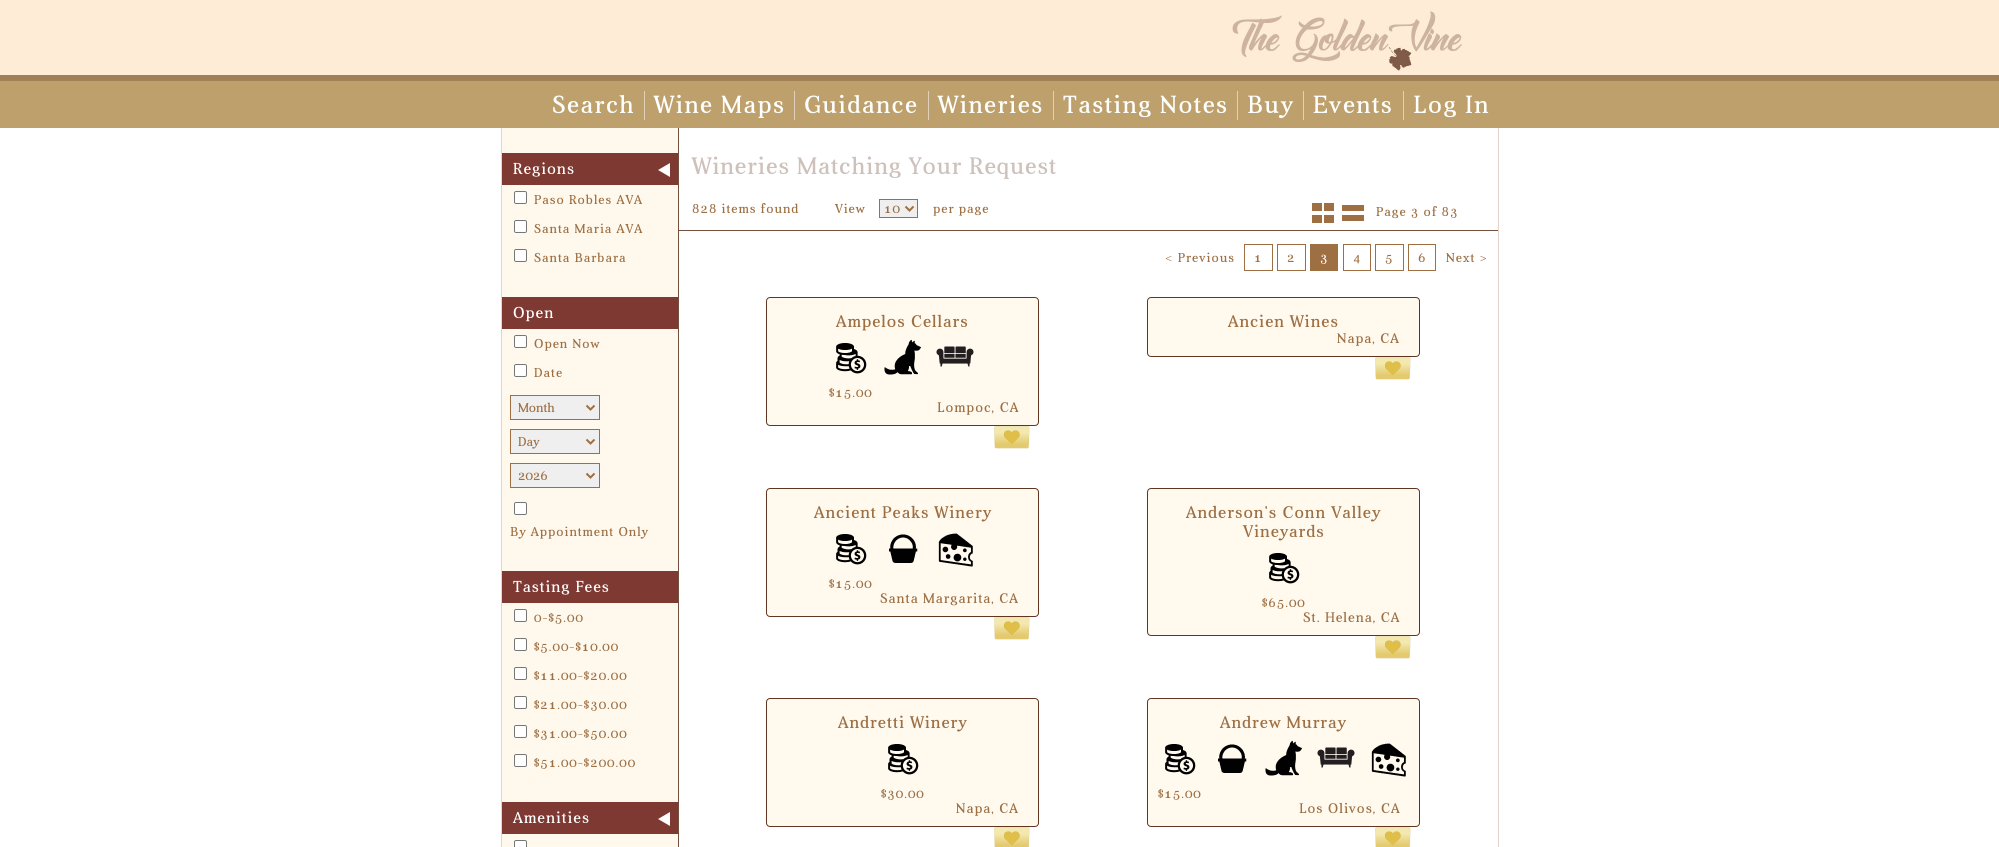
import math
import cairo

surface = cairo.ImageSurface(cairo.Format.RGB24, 1999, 847)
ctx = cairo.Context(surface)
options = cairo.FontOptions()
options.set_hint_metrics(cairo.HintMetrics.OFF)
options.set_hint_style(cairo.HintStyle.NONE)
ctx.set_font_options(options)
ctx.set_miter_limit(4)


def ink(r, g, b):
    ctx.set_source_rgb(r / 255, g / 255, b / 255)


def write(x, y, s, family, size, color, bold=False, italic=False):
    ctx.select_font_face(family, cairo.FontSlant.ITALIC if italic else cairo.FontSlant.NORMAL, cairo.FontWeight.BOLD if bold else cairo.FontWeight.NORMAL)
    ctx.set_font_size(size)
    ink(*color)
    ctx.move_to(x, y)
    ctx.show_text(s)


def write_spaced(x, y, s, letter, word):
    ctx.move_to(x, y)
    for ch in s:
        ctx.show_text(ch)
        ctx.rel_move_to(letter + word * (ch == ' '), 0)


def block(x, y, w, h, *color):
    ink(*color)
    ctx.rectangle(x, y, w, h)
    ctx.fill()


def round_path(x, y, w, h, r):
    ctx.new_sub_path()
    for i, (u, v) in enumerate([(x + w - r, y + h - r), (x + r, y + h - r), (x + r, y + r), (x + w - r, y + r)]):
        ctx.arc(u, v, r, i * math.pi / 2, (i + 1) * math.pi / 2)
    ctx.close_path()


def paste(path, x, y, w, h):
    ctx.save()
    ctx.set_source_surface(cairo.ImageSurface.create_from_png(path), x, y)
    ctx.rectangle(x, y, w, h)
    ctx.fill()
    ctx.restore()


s1 = dict(family="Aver", size=13, color=(157, 111, 67))

ink(255, 255, 255)
ctx.paint()
block(0, 0, 1999, 75, 254, 236, 214)
block(0, 75, 1999, 6, 161, 128, 87)
block(0, 81, 1999, 47, 190, 160, 108)
paste("pic1.png", 1232, 11, 230, 60)
block(644, 91, 1, 29, 224, 208, 183)
ctx.select_font_face("Aver")
ctx.set_font_size(25)
ink(253, 255, 254)
write_spaced(552, 113, "Search", 1.5, 0)
block(794, 91, 1, 29, 224, 208, 183)
ink(253, 255, 254)
write_spaced(654, 113, "Wine Maps", 1.5, 0)
block(928, 91, 1, 29, 224, 208, 183)
ink(253, 255, 254)
write_spaced(804, 113, "Guidance", 1.5, 0)
block(1053, 91, 1, 29, 224, 208, 183)
ink(253, 255, 254)
write_spaced(938, 113, "Wineries", 1.5, 0)
block(1237, 91, 1, 29, 224, 208, 183)
ink(253, 255, 254)
write_spaced(1063, 113, "Tasting Notes", 1.5, 0)
block(1303, 91, 1, 29, 224, 208, 183)
ink(253, 255, 254)
write_spaced(1247, 113, "Buy", 1.5, 0)
block(1403, 91, 1, 29, 224, 208, 183)
ink(253, 255, 254)
write_spaced(1313, 113, "Events", 1.5, 0)
write_spaced(1413, 113, "Log In", 1.5, 0)
block(1498, 128, 1, 719, 229, 211, 205)
block(502, 128, 176, 719, 255, 249, 237)
block(678, 128, 1, 719, 117, 79, 62)
block(501, 128, 1, 719, 229, 211, 205)
block(502, 153, 176, 32, 127, 57, 51)
ctx.set_font_size(16)
ink(253, 255, 254)
write_spaced(513, 174, "Regions", 1, 0)
ink(255, 255, 255)
ctx.new_path()
ctx.move_to(670, 163)
ctx.line_to(670, 177)
ctx.line_to(658, 170)
ctx.close_path()
ctx.fill()
round_path(514.5, 191.5, 12, 12, 1.5)
ctx.fill_preserve()
ink(118, 118, 118)
ctx.set_line_width(1)
ctx.stroke()
ctx.set_font_size(13)
ink(157, 111, 67)
write_spaced(534, 204, "Paso Robles AVA", 1, 0)
ink(255, 255, 255)
round_path(514.5, 220.5, 12, 12, 1.5)
ctx.fill_preserve()
ink(118, 118, 118)
ctx.stroke()
ink(157, 111, 67)
write_spaced(534, 233, "Santa Maria AVA", 1, 0)
ink(255, 255, 255)
round_path(514.5, 249.5, 12, 12, 1.5)
ctx.fill_preserve()
ink(118, 118, 118)
ctx.stroke()
ink(157, 111, 67)
write_spaced(534, 262, "Santa Barbara", 1, 0)
block(502, 297, 176, 32, 127, 57, 51)
ctx.set_font_size(16)
ink(253, 255, 254)
write_spaced(513, 318, "Open", 1, 0)
ink(255, 255, 255)
round_path(514.5, 335.5, 12, 12, 1.5)
ctx.fill_preserve()
ink(118, 118, 118)
ctx.stroke()
ctx.set_font_size(13)
ink(157, 111, 67)
write_spaced(534, 348, "Open Now", 1, 0)
ink(255, 255, 255)
round_path(514.5, 364.5, 12, 12, 1.5)
ctx.fill_preserve()
ink(118, 118, 118)
ctx.stroke()
ink(157, 111, 67)
write_spaced(534, 377, "Date", 1, 0)
ink(239, 239, 239)
ctx.rectangle(510.5, 395.5, 89, 24)
ctx.fill_preserve()
ink(157, 111, 67)
ctx.stroke()
ctx.new_path()
ctx.move_to(586.5, 405.5)
ctx.line_to(590.5, 409.5)
ctx.line_to(594.5, 405.5)
ctx.set_line_width(2)
ctx.stroke()
write(518, 412, "Month", **s1)
ink(239, 239, 239)
ctx.rectangle(510.5, 429.5, 89, 24)
ctx.fill_preserve()
ink(157, 111, 67)
ctx.set_line_width(1)
ctx.stroke()
ctx.new_path()
ctx.move_to(586.5, 439.5)
ctx.line_to(590.5, 443.5)
ctx.line_to(594.5, 439.5)
ctx.set_line_width(2)
ctx.stroke()
write(518, 446, "Day", **s1)
ink(239, 239, 239)
ctx.rectangle(510.5, 463.5, 89, 24)
ctx.fill_preserve()
ink(157, 111, 67)
ctx.set_line_width(1)
ctx.stroke()
ctx.new_path()
ctx.move_to(586.5, 473.5)
ctx.line_to(590.5, 477.5)
ctx.line_to(594.5, 473.5)
ctx.set_line_width(2)
ctx.stroke()
write(518, 480, "2026", **s1)
ink(255, 255, 255)
round_path(514.5, 502.5, 12, 12, 1.5)
ctx.fill_preserve()
ink(118, 118, 118)
ctx.set_line_width(1)
ctx.stroke()
ink(157, 111, 67)
write_spaced(510, 536, "By Appointment Only", 1, 0)
block(502, 571, 176, 32, 127, 57, 51)
ctx.set_font_size(16)
ink(253, 255, 254)
write_spaced(513, 592, "Tasting Fees", 1, 0)
ink(255, 255, 255)
round_path(514.5, 609.5, 12, 12, 1.5)
ctx.fill_preserve()
ink(118, 118, 118)
ctx.stroke()
ctx.set_font_size(13)
ink(157, 111, 67)
write_spaced(534, 622, "0-$5.00", 1, 0)
ink(255, 255, 255)
round_path(514.5, 638.5, 12, 12, 1.5)
ctx.fill_preserve()
ink(118, 118, 118)
ctx.stroke()
ink(157, 111, 67)
write_spaced(534, 651, "$5.00-$10.00", 1, 0)
ink(255, 255, 255)
round_path(514.5, 667.5, 12, 12, 1.5)
ctx.fill_preserve()
ink(118, 118, 118)
ctx.stroke()
ink(157, 111, 67)
write_spaced(534, 680, "$11.00-$20.00", 1, 0)
ink(255, 255, 255)
round_path(514.5, 696.5, 12, 12, 1.5)
ctx.fill_preserve()
ink(118, 118, 118)
ctx.stroke()
ink(157, 111, 67)
write_spaced(534, 709, "$21.00-$30.00", 1, 0)
ink(255, 255, 255)
round_path(514.5, 725.5, 12, 12, 1.5)
ctx.fill_preserve()
ink(118, 118, 118)
ctx.stroke()
ink(157, 111, 67)
write_spaced(534, 738, "$31.00-$50.00", 1, 0)
ink(255, 255, 255)
round_path(514.5, 754.5, 12, 12, 1.5)
ctx.fill_preserve()
ink(118, 118, 118)
ctx.stroke()
ink(157, 111, 67)
write_spaced(534, 767, "$51.00-$200.00", 1, 0)
block(502, 802, 176, 32, 127, 57, 51)
ctx.set_font_size(16)
ink(253, 255, 254)
write_spaced(513, 823, "Amenities", 1, 0)
ink(255, 255, 255)
ctx.new_path()
ctx.move_to(670, 812)
ctx.line_to(670, 826)
ctx.line_to(658, 819)
ctx.close_path()
ctx.fill()
round_path(514.5, 840.5, 12, 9, 1.5)
ctx.fill_preserve()
ink(118, 118, 118)
ctx.stroke()
ctx.set_font_size(24)
ink(206, 193, 187)
write_spaced(692, 174, "Wineries Matching Your Request", 1, 0)
ctx.set_font_size(13)
ink(157, 111, 67)
write_spaced(692, 213, "828 items found", 1, 0)
write_spaced(835, 213, "View", 1, 0)
ink(239, 239, 239)
ctx.rectangle(879.5, 199.5, 38, 18)
ctx.fill_preserve()
ink(157, 111, 67)
ctx.stroke()
ctx.new_path()
ctx.move_to(905.5, 206.5)
ctx.line_to(909.5, 210.5)
ctx.line_to(913.5, 206.5)
ctx.set_line_width(2)
ctx.stroke()
write_spaced(884, 213, "10", 1, 0)
write_spaced(933, 213, "per page", 1, 0)
block(1312, 203, 10, 8, 157, 111, 67)
block(1324, 203, 10, 8, 157, 111, 67)
block(1312, 215, 10, 8, 157, 111, 67)
block(1324, 215, 10, 8, 157, 111, 67)
block(1342, 205, 22, 6, 157, 111, 67)
block(1342, 215, 22, 6, 157, 111, 67)
write_spaced(1376, 216, "Page 3 of 83", 1, 0)
block(679, 230, 819, 1, 117, 80, 63)
ink(157, 111, 67)
write_spaced(1165, 262, "< Previous", 1, 0)
ctx.rectangle(1244.5, 244.5, 28, 26)
ctx.set_line_width(1)
ctx.stroke()
write_spaced(1254, 262, "1", 1, 0)
ctx.rectangle(1277.5, 244.5, 28, 26)
ctx.stroke()
write_spaced(1287, 262, "2", 1, 0)
block(1310, 244, 28, 27, 157, 111, 67)
ink(253, 255, 254)
write_spaced(1320, 262, "3", 1, 0)
ctx.rectangle(1343.5, 244.5, 27, 26)
ink(157, 111, 67)
ctx.stroke()
write_spaced(1353, 262, "4", 1, 0)
ctx.rectangle(1375.5, 244.5, 28, 26)
ctx.stroke()
write_spaced(1385, 262, "5", 1, 0)
ctx.rectangle(1408.5, 244.5, 27, 26)
ctx.stroke()
write_spaced(1418, 262, "6", 1, 0)
write_spaced(1446, 262, "Next >", 1, 0)
ink(255, 249, 238)
round_path(766.5, 297.5, 272, 128, 3.5)
ctx.fill_preserve()
ink(96, 54, 35)
ctx.stroke()
ctx.set_font_size(17)
ink(157, 111, 67)
write_spaced(836, 327, "Ampelos Cellars", 1, 0)
paste("pic2.png", 884, 339, 37, 36)
paste("pic3.png", 936, 346, 38, 21)
paste("pic4.png", 836, 343, 31, 31)
ctx.set_font_size(13)
write_spaced(829, 397, "$15.00", 1, 0)
ctx.set_font_size(14)
write_spaced(937, 412, "Lompoc, CA", 1, 0)
paste("pic5.png", 994, 426, 36, 23)
ink(255, 249, 238)
round_path(1147.5, 297.5, 272, 59, 3.5)
ctx.fill_preserve()
ink(96, 54, 35)
ctx.stroke()
ctx.set_font_size(17)
ink(157, 111, 67)
write_spaced(1228, 327, "Ancien Wines", 1, 0)
ctx.set_font_size(14)
write_spaced(1337, 343, "Napa, CA", 1, 0)
paste("pic5.png", 1375, 357, 36, 23)
ink(255, 249, 238)
round_path(766.5, 488.5, 272, 128, 3.5)
ctx.fill_preserve()
ink(96, 54, 35)
ctx.stroke()
ctx.set_font_size(17)
ink(157, 111, 67)
write_spaced(814, 518, "Ancient Peaks Winery", 1, 0)
paste("pic6.png", 889, 534, 29, 29)
paste("pic7.png", 938, 533, 35, 34)
paste("pic4.png", 836, 534, 31, 31)
ctx.set_font_size(13)
write_spaced(829, 588, "$15.00", 1, 0)
ctx.set_font_size(14)
write_spaced(880, 603, "Santa Margarita, CA", 1, 0)
paste("pic5.png", 994, 617, 36, 23)
ink(255, 249, 238)
round_path(1147.5, 488.5, 272, 147, 3.5)
ctx.fill_preserve()
ink(96, 54, 35)
ctx.stroke()
ctx.set_font_size(17)
ink(157, 111, 67)
write_spaced(1186, 518, "Anderson's Conn Valley", 1, 0)
write_spaced(1243, 537, "Vineyards", 1, 0)
paste("pic4.png", 1269, 553, 31, 31)
ctx.set_font_size(13)
write_spaced(1262, 607, "$65.00", 1, 0)
ctx.set_font_size(14)
write_spaced(1303, 622, "St. Helena, CA", 1, 0)
paste("pic5.png", 1375, 636, 36, 23)
ink(255, 249, 238)
round_path(766.5, 698.5, 272, 128, 3.5)
ctx.fill_preserve()
ink(96, 54, 35)
ctx.stroke()
ctx.set_font_size(17)
ink(157, 111, 67)
write_spaced(838, 728, "Andretti Winery", 1, 0)
paste("pic4.png", 888, 744, 31, 31)
ctx.set_font_size(13)
write_spaced(881, 798, "$30.00", 1, 0)
ctx.set_font_size(14)
write_spaced(956, 813, "Napa, CA", 1, 0)
paste("pic8.png", 994, 827, 36, 20)
ink(255, 249, 238)
round_path(1147.5, 698.5, 272, 128, 3.5)
ctx.fill_preserve()
ink(96, 54, 35)
ctx.stroke()
ctx.set_font_size(17)
ink(157, 111, 67)
write_spaced(1220, 728, "Andrew Murray", 1, 0)
paste("pic6.png", 1218, 744, 29, 29)
paste("pic2.png", 1265, 740, 37, 36)
paste("pic3.png", 1317, 747, 38, 21)
paste("pic7.png", 1371, 743, 35, 34)
paste("pic4.png", 1165, 744, 31, 31)
ctx.set_font_size(13)
write_spaced(1158, 798, "$15.00", 1, 0)
ctx.set_font_size(14)
write_spaced(1299, 813, "Los Olivos, CA", 1, 0)
paste("pic8.png", 1375, 827, 36, 20)
surface.write_to_png("screenshot.png")
